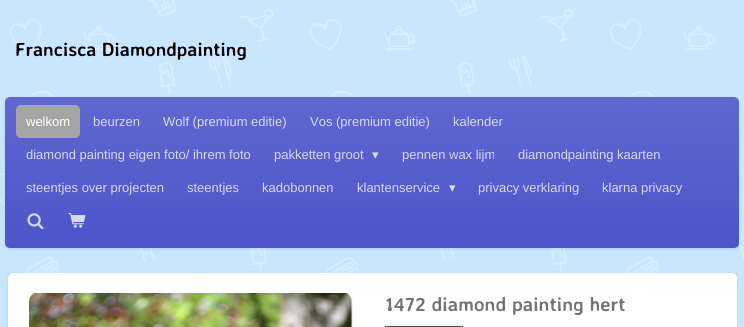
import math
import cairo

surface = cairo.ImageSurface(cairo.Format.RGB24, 744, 327)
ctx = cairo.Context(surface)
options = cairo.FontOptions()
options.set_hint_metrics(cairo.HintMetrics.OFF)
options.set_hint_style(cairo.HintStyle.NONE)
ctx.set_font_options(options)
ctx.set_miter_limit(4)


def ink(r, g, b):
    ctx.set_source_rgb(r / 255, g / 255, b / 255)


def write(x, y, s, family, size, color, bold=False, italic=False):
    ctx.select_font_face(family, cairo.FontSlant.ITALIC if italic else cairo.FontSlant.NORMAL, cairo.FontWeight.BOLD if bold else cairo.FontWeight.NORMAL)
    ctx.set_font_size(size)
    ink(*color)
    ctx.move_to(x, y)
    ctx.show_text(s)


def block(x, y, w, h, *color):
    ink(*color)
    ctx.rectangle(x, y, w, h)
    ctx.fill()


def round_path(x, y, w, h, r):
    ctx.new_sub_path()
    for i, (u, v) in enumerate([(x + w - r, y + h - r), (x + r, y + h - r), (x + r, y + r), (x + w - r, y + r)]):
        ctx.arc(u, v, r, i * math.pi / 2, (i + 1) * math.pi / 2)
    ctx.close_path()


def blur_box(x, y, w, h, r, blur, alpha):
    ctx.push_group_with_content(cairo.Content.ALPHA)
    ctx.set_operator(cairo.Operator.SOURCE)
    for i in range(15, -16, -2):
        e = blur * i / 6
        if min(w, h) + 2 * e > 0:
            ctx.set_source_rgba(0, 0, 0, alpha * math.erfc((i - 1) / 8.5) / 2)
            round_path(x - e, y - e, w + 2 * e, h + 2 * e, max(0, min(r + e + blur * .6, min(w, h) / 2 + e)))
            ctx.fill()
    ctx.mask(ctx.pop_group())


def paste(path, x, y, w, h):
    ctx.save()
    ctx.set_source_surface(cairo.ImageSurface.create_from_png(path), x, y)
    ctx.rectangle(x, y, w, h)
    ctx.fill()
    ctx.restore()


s1 = dict(family="Averia Sans Libre", size=19, color=(0, 0, 0), bold=True)
s2 = dict(family="Liberation Sans", size=13, color=(255, 255, 255))
s3 = dict(family="Liberation Sans", size=13, color=(215, 216, 243))
s4 = dict(family="DejaVu Sans", size=13, color=(215, 216, 243))
s5 = dict(family="Averia Sans Libre", size=19.5, color=(115, 115, 115), bold=True)

ink(200, 231, 255)
ctx.paint()
paste("pic1.png", 0, 0, 744, 273)
write(15, 56, "Francisca Diamondpainting", **s1)
ink(0, 0, 0)
blur_box(5, 98, 734, 151, 5, 1.5, 0.1)
gradient = cairo.LinearGradient(372, 248, 372, 97)
gradient.add_color_stop_rgba(0, 0.302, 0.329, 0.792, 1)
gradient.add_color_stop_rgba(1, 0.38, 0.404, 0.816, 1)
ctx.set_source(gradient)
round_path(5, 97, 734, 151, 5)
ctx.fill()
ink(165, 165, 165)
round_path(16, 105, 64, 33, 5)
ctx.fill()
write(26, 126, "welkom", **s2)
write(93, 126, "beurzen", **s3)
write(163, 126, "Wolf (premium editie)", **s3)
write(310, 126, "Vos (premium editie)", **s3)
write(453, 126, "kalender", **s3)
write(26, 159, "diamond painting eigen foto/ ihrem foto", **s3)
write(274, 159, "pakketten groot", **s3)
write(372, 159, "▾", **s4)
write(402, 159, "pennen wax lijm", **s3)
write(518, 159, "diamondpainting kaarten", **s3)
write(26, 192, "steentjes over projecten", **s3)
write(187, 192, "steentjes", **s3)
write(262, 192, "kadobonnen", **s3)
write(357, 192, "klantenservice", **s3)
write(449, 192, "▾", **s4)
write(478, 192, "privacy verklaring", **s3)
write(602, 192, "klarna privacy", **s3)
paste("pic2.png", 27, 213, 17, 17)
paste("pic3.png", 68, 212, 18, 16)
ink(0, 0, 0)
blur_box(8, 274, 729, 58, 0, 1.5, 0.1)
ink(255, 255, 255)
round_path(8, 273, 729, 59, 5)
ctx.fill()
paste("pic4.png", 29, 293, 324, 34)
write(385, 311, "1472 diamond painting hert", **s5)
block(385, 326, 78, 1, 66, 76, 81)
surface.write_to_png("screenshot.png")
